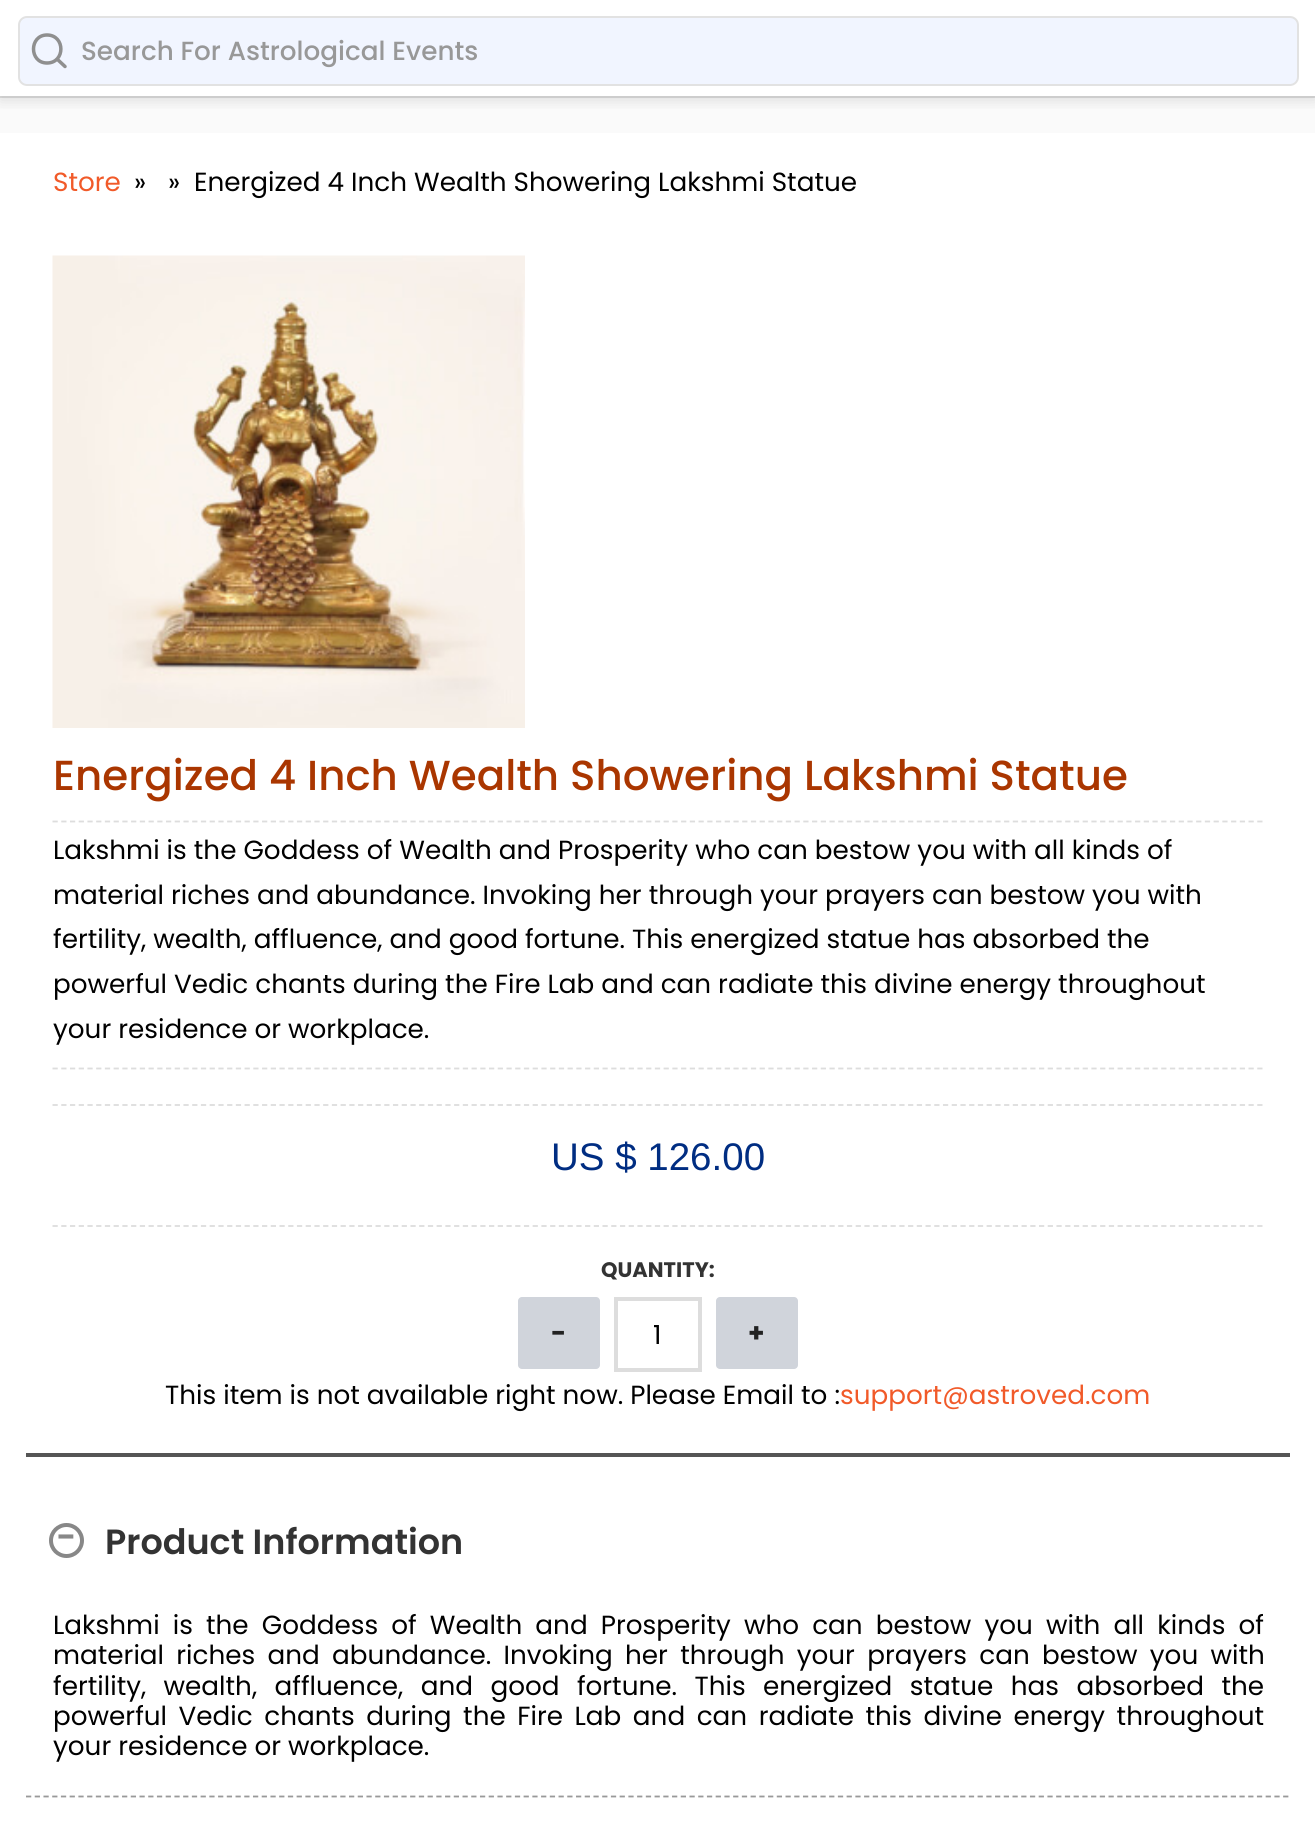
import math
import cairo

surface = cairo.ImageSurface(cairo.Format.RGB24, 1315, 1840)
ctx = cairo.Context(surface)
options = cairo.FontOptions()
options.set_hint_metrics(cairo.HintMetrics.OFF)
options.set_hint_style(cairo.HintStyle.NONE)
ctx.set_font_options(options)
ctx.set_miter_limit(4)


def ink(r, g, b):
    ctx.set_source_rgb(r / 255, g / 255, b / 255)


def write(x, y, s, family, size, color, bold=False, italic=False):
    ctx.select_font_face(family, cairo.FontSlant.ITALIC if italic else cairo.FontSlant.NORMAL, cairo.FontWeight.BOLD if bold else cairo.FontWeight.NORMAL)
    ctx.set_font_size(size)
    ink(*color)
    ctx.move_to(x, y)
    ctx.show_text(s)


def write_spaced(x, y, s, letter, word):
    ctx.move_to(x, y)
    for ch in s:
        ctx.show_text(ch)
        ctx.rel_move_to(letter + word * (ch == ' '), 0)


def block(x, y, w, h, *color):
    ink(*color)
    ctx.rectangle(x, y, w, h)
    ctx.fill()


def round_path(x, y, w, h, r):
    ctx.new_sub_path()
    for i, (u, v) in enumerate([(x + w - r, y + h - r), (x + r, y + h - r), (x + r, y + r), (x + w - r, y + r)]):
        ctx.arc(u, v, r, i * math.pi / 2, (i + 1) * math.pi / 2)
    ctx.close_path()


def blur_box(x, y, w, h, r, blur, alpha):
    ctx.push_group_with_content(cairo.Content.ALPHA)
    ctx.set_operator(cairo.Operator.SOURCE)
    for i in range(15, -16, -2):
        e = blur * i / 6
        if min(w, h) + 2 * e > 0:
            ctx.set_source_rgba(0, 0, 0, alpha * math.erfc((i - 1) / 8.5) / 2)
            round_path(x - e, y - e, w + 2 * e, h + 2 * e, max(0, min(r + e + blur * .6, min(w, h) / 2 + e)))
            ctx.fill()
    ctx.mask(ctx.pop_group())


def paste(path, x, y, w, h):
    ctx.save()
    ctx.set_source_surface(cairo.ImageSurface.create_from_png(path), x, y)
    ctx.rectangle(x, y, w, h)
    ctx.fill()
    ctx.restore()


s1 = dict(family="Poppins Medium", size=26.25, color=(152, 152, 152))
s2 = dict(family="Poppins", size=26.25, color=(241, 90, 41))
s3 = dict(family="Poppins", size=26.25, color=(0, 0, 0))
s4 = dict(family="Poppins Medium", size=42, color=(170, 54, 0))
s5 = dict(family="Liberation Sans", size=38.5, color=(0, 45, 130))
s6 = dict(family="Poppins", size=21, color=(51, 51, 51), bold=True)
s7 = dict(family="Poppins", size=26.25, color=(34, 34, 34), bold=True)
s8 = dict(family="Poppins SemiBold", size=35, color=(136, 136, 136))
s9 = dict(family="Poppins SemiBold", size=35, color=(51, 51, 51))

ink(255, 255, 255)
ctx.paint()
block(0, 98, 1315, 35, 250, 250, 250)
block(0, 96, 1315, 2, 221, 221, 221)
ctx.save()
ctx.rectangle(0, 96, 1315, 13)
ctx.clip()
ink(99, 99, 99)
blur_box(0, -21, 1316, 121, 0, 7, 0.2)
ctx.restore()
ink(241, 245, 255)
round_path(19, 17, 1279, 68, 8)
ctx.fill_preserve()
ink(226, 226, 226)
ctx.stroke()
ctx.new_path()
ctx.move_to(47, 63)
ctx.curve_to(65.5, 63, 65.5, 35, 47, 35)
ctx.curve_to(29, 35, 29, 63, 47, 63)
ctx.close_path()
ctx.move_to(65, 66.5)
ctx.line_to(57, 59)
ink(143, 143, 143)
ctx.set_line_width(3.5)
ctx.set_line_cap(cairo.LineCap.ROUND)
ctx.set_line_join(cairo.LineJoin.ROUND)
ctx.stroke()
write(81, 60, "Search For Astrological Events", **s1)
write(53, 191, "Store", **s2)
write(134, 191, "»", **s3)
write(168, 191, "»", **s3)
write(194, 191, "Energized 4 Inch Wealth Showering Lakshmi Statue", **s3)
paste("pic1.png", 52, 255, 473, 473)
ctx.new_path()
ctx.move_to(52.5, 821.5)
ctx.line_to(1263.5, 821.5)
ink(221, 221, 221)
ctx.set_line_width(1.8)
ctx.set_line_cap(cairo.LineCap.BUTT)
ctx.set_line_join(cairo.LineJoin.MITER)
ctx.set_dash([5.25, 3.48])
ctx.stroke()
write(53, 790, "Energized 4 Inch Wealth Showering Lakshmi Statue", **s4)
write(53, 859, "Lakshmi is the Goddess of Wealth and Prosperity who can bestow you with all kinds of", **s3)
write(53, 904, "material riches and abundance. Invoking her through your prayers can bestow you with", **s3)
write(53, 948, "fertility, wealth, affluence, and good fortune. This energized statue has absorbed the", **s3)
write(53, 993, "powerful Vedic chants during the Fire Lab and can radiate this divine energy throughout", **s3)
write(53, 1038, "your residence or workplace.", **s3)
ctx.new_path()
ctx.move_to(52.5, 1068.5)
ctx.line_to(1263.5, 1068.5)
ink(221, 221, 221)
ctx.stroke()
ctx.new_path()
ctx.move_to(52.5, 1105)
ctx.line_to(1263.5, 1105)
ctx.stroke()
ctx.new_path()
ctx.move_to(52.5, 1226)
ctx.line_to(1263.5, 1226)
ctx.stroke()
write(551, 1170, "US $ 126.00", **s5)
write(601, 1277, "QUANTITY:", **s6)
ink(208, 212, 219)
round_path(518, 1297, 82, 72, 4)
ctx.fill()
write(551, 1342, "-", **s7)
ctx.rectangle(616, 1299, 84, 71)
ink(221, 221, 221)
ctx.set_line_width(4)
ctx.set_dash([])
ctx.stroke()
write(653, 1344, "1", **s3)
ink(208, 212, 219)
round_path(716, 1297, 82, 72, 4)
ctx.fill()
write(748, 1342, "+", **s7)
write(165, 1404, "This item is not available right now. Please Email to :", **s3)
write(840, 1404, "support@astroved.com", **s2)
block(26, 1453, 1264, 4, 85, 85, 85)
ctx.new_path()
ctx.arc(66.5, 1540.5, 15.5, 0, 2 * math.pi)
ink(136, 136, 136)
ctx.stroke()
write(56, 1549, "-", **s8)
write(105, 1554, "Product Information", **s9)
ctx.new_path()
ctx.move_to(26, 1796.5)
ctx.line_to(1290, 1796.5)
ink(153, 153, 153)
ctx.set_line_width(1.8)
ctx.set_dash([5.25, 3.48])
ctx.stroke()
ctx.select_font_face("Poppins")
ctx.set_font_size(26.25)
ink(0, 0, 0)
write_spaced(53, 1634, "Lakshmi is the Goddess of Wealth and Prosperity who can bestow you with all kinds of", 0, 6.1)
write_spaced(53, 1664, "material riches and abundance. Invoking her through your prayers can bestow you with", 0, 5.25)
write_spaced(53, 1695, "fertility, wealth, affluence, and good fortune. This energized statue has absorbed the", 0, 10.4)
write_spaced(53, 1725, "powerful Vedic chants during the Fire Lab and can radiate this divine energy throughout", 0, 4.5)
write(53, 1755, "your residence or workplace.", **s3)
surface.write_to_png("screenshot.png")
